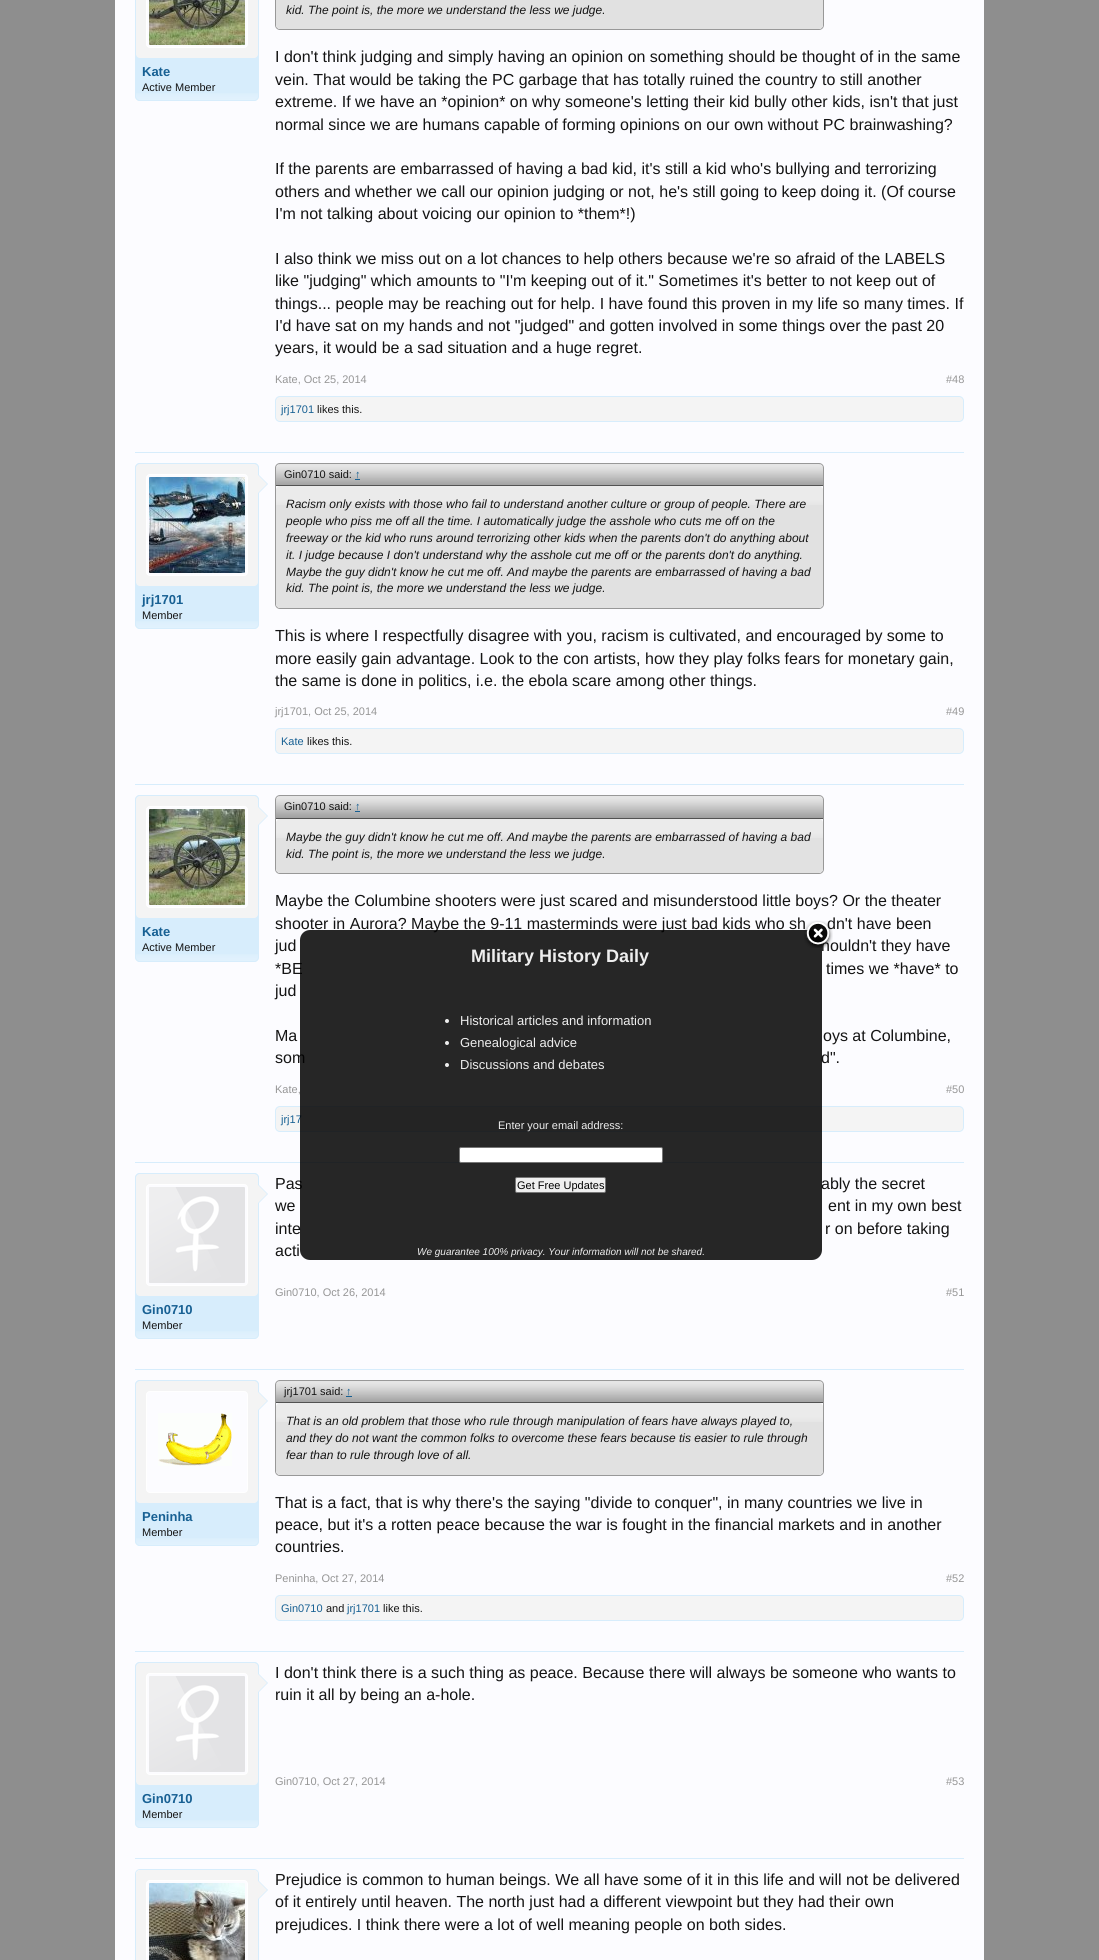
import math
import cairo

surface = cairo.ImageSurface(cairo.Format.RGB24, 1099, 1960)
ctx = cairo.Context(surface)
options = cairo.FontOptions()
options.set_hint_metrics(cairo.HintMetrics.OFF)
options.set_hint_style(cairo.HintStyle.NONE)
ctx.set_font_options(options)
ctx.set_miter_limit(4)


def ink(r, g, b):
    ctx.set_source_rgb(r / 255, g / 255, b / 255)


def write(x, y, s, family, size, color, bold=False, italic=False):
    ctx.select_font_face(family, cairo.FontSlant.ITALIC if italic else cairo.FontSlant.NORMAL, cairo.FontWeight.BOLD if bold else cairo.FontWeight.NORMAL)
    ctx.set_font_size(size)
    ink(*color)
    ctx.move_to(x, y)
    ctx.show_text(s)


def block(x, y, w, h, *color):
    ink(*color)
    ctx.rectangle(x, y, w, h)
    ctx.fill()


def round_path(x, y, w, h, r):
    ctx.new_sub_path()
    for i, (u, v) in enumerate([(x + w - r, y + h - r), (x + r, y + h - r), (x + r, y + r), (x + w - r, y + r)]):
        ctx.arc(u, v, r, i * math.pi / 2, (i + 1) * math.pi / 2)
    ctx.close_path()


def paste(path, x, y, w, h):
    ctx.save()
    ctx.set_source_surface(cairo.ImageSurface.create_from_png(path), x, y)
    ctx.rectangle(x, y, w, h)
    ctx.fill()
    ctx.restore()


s1 = dict(family="Liberation Sans", size=13, color=(23, 96, 147), bold=True)
s2 = dict(family="Liberation Sans", size=11, color=(20, 20, 20))
s3 = dict(family="Liberation Sans", size=12, color=(20, 20, 20), italic=True)
s4 = dict(family="Liberation Sans", size=16, color=(20, 20, 20))
s5 = dict(family="Liberation Sans", size=11, color=(150, 150, 150))
s6 = dict(family="Liberation Sans", size=11, color=(23, 96, 147))
s7 = dict(family="Liberation Sans", size=18, color=(238, 238, 238), bold=True)
s8 = dict(family="Liberation Sans", size=13, color=(238, 238, 238))
s9 = dict(family="Liberation Sans", size=11, color=(238, 238, 238))
s10 = dict(family="Liberation Sans", size=11, color=(0, 0, 0))
s11 = dict(family="Liberation Sans", size=10, color=(238, 238, 238), italic=True)

ink(142, 142, 142)
ctx.paint()
block(115, 0, 869, 1960, 252, 252, 255)
ink(215, 237, 252)
round_path(135, -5, 124, 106, 5)
ctx.fill()
paste("pic1.png", 135, 93, 124, 7)
round_path(135.5, -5.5, 123, 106, 4.5)
ctx.set_line_width(1)
ctx.stroke()
ink(244, 244, 244)
round_path(136, -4, 122, 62, 4)
ctx.fill()
ink(252, 252, 255)
round_path(146.5, -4.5, 101, 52, 3.5)
ctx.fill_preserve()
ink(255, 255, 255)
ctx.stroke()
paste("pic2.png", 149, 0, 96, 45)
write(142, 76, "Kate", **s1)
write(142, 91, "Active Member", **s2)
round_path(275.5, -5.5, 548, 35, 4.5)
ink(152, 152, 152)
ctx.stroke()
ink(225, 225, 225)
round_path(276, -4, 547, 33, 4)
ctx.fill()
write(286, 14, "kid. The point is, the more we understand the less we judge.", **s3)
write(275, 62, "I don't think judging and simply having an opinion on something should be thought of in the same", **s4)
write(275, 85, "vein. That would be taking the PC garbage that has totally ruined the country to still another", **s4)
write(275, 107, "extreme. If we have an *opinion* on why someone's letting their kid bully other kids, isn't that just", **s4)
write(275, 130, "normal since we are humans capable of forming opinions on our own without PC brainwashing?", **s4)
write(275, 174, "If the parents are embarrassed of having a bad kid, it's still a kid who's bullying and terrorizing", **s4)
write(275, 197, "others and whether we call our opinion judging or not, he's still going to keep doing it. (Of course", **s4)
write(275, 219, "I'm not talking about voicing our opinion to *them*!)", **s4)
write(275, 264, "I also think we miss out on a lot chances to help others because we're so afraid of the LABELS", **s4)
write(275, 286, "like \"judging\" which amounts to \"I'm keeping out of it.\" Sometimes it's better to not keep out of", **s4)
write(275, 309, "things... people may be reaching out for help. I have found this proven in my life so many times. If", **s4)
write(275, 331, "I'd have sat on my hands and not \"judged\" and gotten involved in some things over the past 20", **s4)
write(275, 353, "years, it would be a sad situation and a huge regret.", **s4)
write(275, 383, "Kate, Oct 25, 2014", **s5)
write(946, 383, "#48", **s5)
ink(244, 244, 244)
round_path(275.5, 396.5, 688, 25, 4.5)
ctx.fill_preserve()
ink(215, 237, 252)
ctx.stroke()
write(281, 413, "jrj1701", **s6)
write(317, 413, "likes this.", **s2)
block(135, 452, 829, 1, 215, 237, 252)
round_path(135, 463, 124, 166, 5)
ctx.fill()
paste("pic1.png", 135, 621, 124, 7)
round_path(135.5, 463.5, 123, 165, 4.5)
ctx.stroke()
ink(244, 244, 244)
round_path(136, 464, 122, 122, 4)
ctx.fill()
ink(252, 252, 255)
round_path(146.5, 474.5, 101, 101, 3.5)
ctx.fill_preserve()
ink(255, 255, 255)
ctx.stroke()
paste("pic3.png", 149, 477, 96, 96)
ink(215, 237, 252)
ctx.new_path()
ctx.move_to(258, 494)
ctx.line_to(258, 474)
ctx.line_to(268, 484)
ctx.close_path()
ctx.fill()
ink(244, 244, 244)
ctx.new_path()
ctx.move_to(257, 494)
ctx.line_to(257, 474)
ctx.line_to(267, 484)
ctx.close_path()
ctx.fill()
write(142, 604, "jrj1701", **s1)
write(142, 619, "Member", **s2)
round_path(275.5, 463.5, 548, 145, 4.5)
ink(152, 152, 152)
ctx.stroke()
ctx.new_path()
ctx.move_to(280, 464)
ctx.line_to(819, 464)
ctx.curve_to(821, 464, 823, 466, 823, 468)
ctx.line_to(823, 486)
ctx.line_to(276, 486)
ctx.line_to(276, 468)
ctx.curve_to(276, 466, 278, 464, 280, 464)
ctx.close_path()
ctx.fill()
paste("pic4.png", 276, 464, 547, 21)
block(276, 485, 547, 1, 82, 82, 82)
write(284, 478, "Gin0710 said:", **s2)
write(355, 478, "↑", **s6)
block(355, 479, 5, 1, 23, 96, 147)
ink(225, 225, 225)
round_path(276, 486, 547, 122, 4)
ctx.fill()
paste("pic5.png", 276, 486, 547, 19)
write(286, 508, "Racism only exists with those who fail to understand another culture or group of people. There are", **s3)
write(286, 525, "people who piss me off all the time. I automatically judge the asshole who cuts me off on the", **s3)
write(286, 542, "freeway or the kid who runs around terrorizing other kids when the parents don't do anything about", **s3)
write(286, 559, "it. I judge because I don't understand why the asshole cut me off or the parents don't do anything.", **s3)
write(286, 576, "Maybe the guy didn't know he cut me off. And maybe the parents are embarrassed of having a bad", **s3)
write(286, 592, "kid. The point is, the more we understand the less we judge.", **s3)
write(275, 641, "This is where I respectfully disagree with you, racism is cultivated, and encouraged by some to", **s4)
write(275, 664, "more easily gain advantage. Look to the con artists, how they play folks fears for monetary gain,", **s4)
write(275, 686, "the same is done in politics, i.e. the ebola scare among other things.", **s4)
write(275, 715, "jrj1701, Oct 25, 2014", **s5)
write(946, 715, "#49", **s5)
ink(244, 244, 244)
round_path(275.5, 728.5, 688, 25, 4.5)
ctx.fill_preserve()
ink(215, 237, 252)
ctx.stroke()
write(281, 745, "Kate", **s6)
write(307, 745, "likes this.", **s2)
block(135, 784, 829, 1, 215, 237, 252)
round_path(135, 795, 124, 167, 5)
ctx.fill()
paste("pic1.png", 135, 954, 124, 7)
round_path(135.5, 795.5, 123, 166, 4.5)
ctx.stroke()
ink(244, 244, 244)
round_path(136, 796, 122, 122, 4)
ctx.fill()
ink(252, 252, 255)
round_path(146.5, 806.5, 101, 101, 3.5)
ctx.fill_preserve()
ink(255, 255, 255)
ctx.stroke()
paste("pic6.png", 149, 809, 96, 96)
ink(215, 237, 252)
ctx.new_path()
ctx.move_to(258, 826)
ctx.line_to(258, 806)
ctx.line_to(268, 816)
ctx.close_path()
ctx.fill()
ink(244, 244, 244)
ctx.new_path()
ctx.move_to(257, 826)
ctx.line_to(257, 806)
ctx.line_to(267, 816)
ctx.close_path()
ctx.fill()
write(142, 936, "Kate", **s1)
write(142, 951, "Active Member", **s2)
round_path(275.5, 795.5, 548, 78, 4.5)
ink(152, 152, 152)
ctx.stroke()
ctx.new_path()
ctx.move_to(280, 796)
ctx.line_to(819, 796)
ctx.curve_to(821, 796, 823, 798, 823, 800)
ctx.line_to(823, 819)
ctx.line_to(276, 819)
ctx.line_to(276, 800)
ctx.curve_to(276, 798, 278, 796, 280, 796)
ctx.close_path()
ctx.fill()
paste("pic7.png", 276, 796, 547, 22)
block(276, 818, 547, 1, 82, 82, 82)
write(284, 810, "Gin0710 said:", **s2)
write(355, 810, "↑", **s6)
block(355, 811, 5, 1, 23, 96, 147)
ink(225, 225, 225)
round_path(276, 819, 547, 54, 4)
ctx.fill()
paste("pic5.png", 276, 819, 547, 19)
write(286, 841, "Maybe the guy didn't know he cut me off. And maybe the parents are embarrassed of having a bad", **s3)
write(286, 858, "kid. The point is, the more we understand the less we judge.", **s3)
write(275, 906, "Maybe the Columbine shooters were just scared and misunderstood little boys? Or the theater", **s4)
write(275, 929, "shooter in Aurora? Maybe the 9-11 masterminds were just bad kids who sh", **s4)
write(827, 929, "dn't have been", **s4)
write(275, 951, "jud", **s4)
write(821, 951, "houldn't they have", **s4)
write(275, 974, "*BE", **s4)
write(826, 974, "times we *have* to", **s4)
write(275, 996, "jud", **s4)
write(275, 1041, "Ma", **s4)
write(823, 1041, "oys at Columbine,", **s4)
write(275, 1063, "som", **s4)
write(821, 1063, "d\".", **s4)
write(275, 1093, "Kate,", **s5)
write(946, 1093, "#50", **s5)
ink(244, 244, 244)
round_path(275.5, 1106.5, 688, 25, 4.5)
ctx.fill_preserve()
ink(215, 237, 252)
ctx.stroke()
write(281, 1123, "jrj17", **s6)
block(135, 1162, 829, 1, 215, 237, 252)
write(275, 1189, "Pas", **s4)
write(821, 1189, "ably the secret", **s4)
write(275, 1211, "we", **s4)
write(828, 1211, "ent in my own best", **s4)
write(275, 1234, "inte", **s4)
write(825, 1234, "r on before taking", **s4)
write(275, 1256, "acti", **s4)
write(275, 1296, "Gin0710, Oct 26, 2014", **s5)
write(946, 1296, "#51", **s5)
ink(215, 237, 252)
round_path(135, 1173, 124, 166, 5)
ctx.fill()
paste("pic1.png", 135, 1331, 124, 7)
round_path(135.5, 1173.5, 123, 165, 4.5)
ctx.stroke()
ink(244, 244, 244)
round_path(136, 1174, 122, 122, 4)
ctx.fill()
ink(252, 252, 255)
round_path(146.5, 1184.5, 101, 101, 3.5)
ctx.fill_preserve()
ink(255, 255, 255)
ctx.stroke()
paste("pic8.png", 149, 1187, 96, 96)
ink(215, 237, 252)
ctx.new_path()
ctx.move_to(258, 1204)
ctx.line_to(258, 1184)
ctx.line_to(268, 1194)
ctx.close_path()
ctx.fill()
ink(244, 244, 244)
ctx.new_path()
ctx.move_to(257, 1204)
ctx.line_to(257, 1184)
ctx.line_to(267, 1194)
ctx.close_path()
ctx.fill()
write(142, 1314, "Gin0710", **s1)
write(142, 1329, "Member", **s2)
block(135, 1369, 829, 1, 215, 237, 252)
round_path(135, 1380, 124, 166, 5)
ctx.fill()
paste("pic1.png", 135, 1538, 124, 7)
round_path(135.5, 1380.5, 123, 165, 4.5)
ctx.stroke()
ink(244, 244, 244)
round_path(136, 1381, 122, 122, 4)
ctx.fill()
ink(252, 252, 255)
round_path(146.5, 1391.5, 101, 101, 3.5)
ctx.fill_preserve()
ink(255, 255, 255)
ctx.stroke()
paste("pic9.png", 158, 1413, 74, 53)
ink(215, 237, 252)
ctx.new_path()
ctx.move_to(258, 1411)
ctx.line_to(258, 1391)
ctx.line_to(268, 1401)
ctx.close_path()
ctx.fill()
ink(244, 244, 244)
ctx.new_path()
ctx.move_to(257, 1411)
ctx.line_to(257, 1391)
ctx.line_to(267, 1401)
ctx.close_path()
ctx.fill()
write(142, 1521, "Peninha", **s1)
write(142, 1536, "Member", **s2)
round_path(275.5, 1380.5, 548, 95, 4.5)
ink(152, 152, 152)
ctx.stroke()
ctx.new_path()
ctx.move_to(280, 1381)
ctx.line_to(819, 1381)
ctx.curve_to(821, 1381, 823, 1383, 823, 1385)
ctx.line_to(823, 1403)
ctx.line_to(276, 1403)
ctx.line_to(276, 1385)
ctx.curve_to(276, 1383, 278, 1381, 280, 1381)
ctx.close_path()
ctx.fill()
paste("pic4.png", 276, 1381, 547, 21)
block(276, 1402, 547, 1, 82, 82, 82)
write(284, 1395, "jrj1701 said:", **s2)
write(346, 1395, "↑", **s6)
block(346, 1396, 6, 1, 23, 96, 147)
ink(225, 225, 225)
round_path(276, 1403, 547, 72, 4)
ctx.fill()
paste("pic5.png", 276, 1403, 547, 19)
write(286, 1425, "That is an old problem that those who rule through manipulation of fears have always played to,", **s3)
write(286, 1442, "and they do not want the common folks to overcome these fears because tis easier to rule through", **s3)
write(286, 1459, "fear than to rule through love of all.", **s3)
write(275, 1508, "That is a fact, that is why there's the saying \"divide to conquer\", in many countries we live in", **s4)
write(275, 1530, "peace, but it's a rotten peace because the war is fought in the financial markets and in another", **s4)
write(275, 1552, "countries.", **s4)
write(275, 1582, "Peninha, Oct 27, 2014", **s5)
write(946, 1582, "#52", **s5)
ink(244, 244, 244)
round_path(275.5, 1595.5, 688, 25, 4.5)
ctx.fill_preserve()
ink(215, 237, 252)
ctx.stroke()
write(281, 1612, "Gin0710", **s6)
write(326, 1612, "and", **s2)
write(347, 1612, "jrj1701", **s6)
write(383, 1612, "like this.", **s2)
block(135, 1651, 829, 1, 215, 237, 252)
write(275, 1678, "I don't think there is a such thing as peace. Because there will always be someone who wants to", **s4)
write(275, 1700, "ruin it all by being an a-hole.", **s4)
write(275, 1785, "Gin0710, Oct 27, 2014", **s5)
write(946, 1785, "#53", **s5)
ink(215, 237, 252)
round_path(135, 1662, 124, 166, 5)
ctx.fill()
paste("pic1.png", 135, 1820, 124, 7)
round_path(135.5, 1662.5, 123, 165, 4.5)
ctx.stroke()
ink(244, 244, 244)
round_path(136, 1663, 122, 122, 4)
ctx.fill()
ink(252, 252, 255)
round_path(146.5, 1673.5, 101, 101, 3.5)
ctx.fill_preserve()
ink(255, 255, 255)
ctx.stroke()
paste("pic8.png", 149, 1676, 96, 96)
ink(215, 237, 252)
ctx.new_path()
ctx.move_to(258, 1693)
ctx.line_to(258, 1673)
ctx.line_to(268, 1683)
ctx.close_path()
ctx.fill()
ink(244, 244, 244)
ctx.new_path()
ctx.move_to(257, 1693)
ctx.line_to(257, 1673)
ctx.line_to(267, 1683)
ctx.close_path()
ctx.fill()
write(142, 1803, "Gin0710", **s1)
write(142, 1818, "Member", **s2)
block(135, 1858, 829, 1, 215, 237, 252)
round_path(135.5, 1869.5, 123, 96, 4.5)
ctx.stroke()
ink(244, 244, 244)
round_path(136, 1870, 122, 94, 4)
ctx.fill()
ink(252, 252, 255)
round_path(146.5, 1880.5, 101, 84, 3.5)
ctx.fill_preserve()
ink(255, 255, 255)
ctx.stroke()
paste("pic10.png", 149, 1883, 96, 77)
ink(215, 237, 252)
ctx.new_path()
ctx.move_to(258, 1900)
ctx.line_to(258, 1880)
ctx.line_to(268, 1890)
ctx.close_path()
ctx.fill()
ink(244, 244, 244)
ctx.new_path()
ctx.move_to(257, 1900)
ctx.line_to(257, 1880)
ctx.line_to(267, 1890)
ctx.close_path()
ctx.fill()
write(275, 1885, "Prejudice is common to human beings. We all have some of it in this life and will not be delivered", **s4)
write(275, 1907, "of it entirely until heaven. The north just had a different viewpoint but they had their own", **s4)
write(275, 1930, "prejudices. I think there were a lot of well meaning people on both sides.", **s4)
ctx.set_source_rgba(0, 0, 0, 0.85)
round_path(300, 930, 522, 330, 10)
ctx.fill()
paste("pic11.png", 804, 920, 29, 28)
write(471, 962, "Military History Daily", **s7)
ctx.new_path()
ctx.arc(447, 1021, 2, 0, 2 * math.pi)
ctx.fill()
write(460, 1025, "Historical articles and information", **s8)
ctx.new_path()
ctx.arc(447, 1043, 2, 0, 2 * math.pi)
ctx.fill()
write(460, 1047, "Genealogical advice", **s8)
ctx.new_path()
ctx.arc(447, 1065, 2, 0, 2 * math.pi)
ctx.fill()
write(460, 1069, "Discussions and debates", **s8)
write(498, 1129, "Enter your email address:", **s9)
ink(255, 255, 255)
round_path(459.5, 1147.5, 203, 15, 1.5)
ctx.fill_preserve()
ink(118, 118, 118)
ctx.stroke()
ink(239, 239, 239)
round_path(515.5, 1177.5, 90, 15, 1.5)
ctx.fill_preserve()
ink(118, 118, 118)
ctx.stroke()
write(517, 1189, "Get Free Updates", **s10)
write(417, 1255, "We guarantee 100% privacy. Your information will not be shared.", **s11)
surface.write_to_png("screenshot.png")
